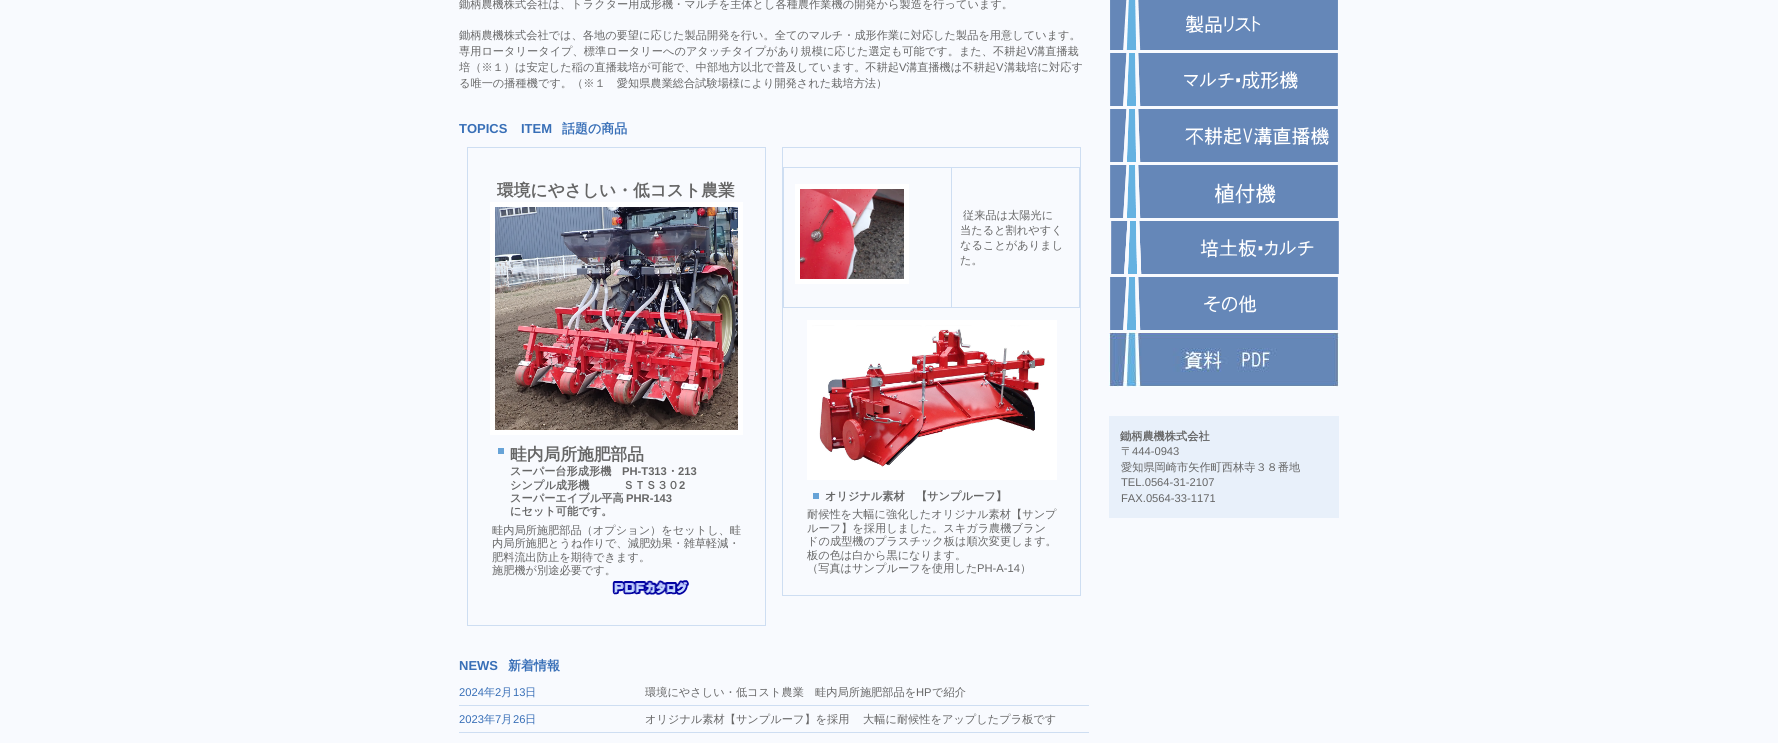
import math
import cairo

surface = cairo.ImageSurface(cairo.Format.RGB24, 1778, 743)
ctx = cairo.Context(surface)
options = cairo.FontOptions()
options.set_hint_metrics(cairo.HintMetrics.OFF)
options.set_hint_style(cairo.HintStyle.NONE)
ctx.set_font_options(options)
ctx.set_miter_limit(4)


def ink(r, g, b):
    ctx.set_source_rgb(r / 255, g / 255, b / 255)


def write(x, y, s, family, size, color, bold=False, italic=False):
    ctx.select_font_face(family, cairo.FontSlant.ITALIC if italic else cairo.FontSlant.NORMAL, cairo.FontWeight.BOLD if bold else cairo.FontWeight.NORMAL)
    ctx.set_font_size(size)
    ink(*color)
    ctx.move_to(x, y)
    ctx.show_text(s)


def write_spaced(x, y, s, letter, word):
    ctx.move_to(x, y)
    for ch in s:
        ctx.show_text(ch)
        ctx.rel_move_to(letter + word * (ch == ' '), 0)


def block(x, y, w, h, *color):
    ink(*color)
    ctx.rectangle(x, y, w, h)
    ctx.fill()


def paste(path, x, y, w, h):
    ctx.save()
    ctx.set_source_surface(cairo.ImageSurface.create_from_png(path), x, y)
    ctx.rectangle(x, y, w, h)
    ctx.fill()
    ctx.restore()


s1 = dict(family="WenQuanYi Zen Hei Medium", size=11.2, color=(102, 102, 102))
s2 = dict(family="Liberation Sans", size=11.2, color=(102, 102, 102))
s3 = dict(family="Liberation Sans", size=13, color=(56, 111, 183), bold=True)
s4 = dict(family="WenQuanYi Zen Hei", size=13, color=(56, 111, 183), bold=True)
s5 = dict(family="WenQuanYi Zen Hei", size=16.75, color=(102, 102, 102), bold=True)
s6 = dict(family="WenQuanYi Zen Hei", size=11.2, color=(102, 102, 102), bold=True)
s7 = dict(family="Liberation Sans", size=11.2, color=(102, 102, 102), bold=True)
s8 = dict(family="Liberation Sans", size=11.2, color=(56, 111, 183))
s9 = dict(family="WenQuanYi Zen Hei Medium", size=11.2, color=(56, 111, 183))

ink(248, 250, 254)
ctx.paint()
write(459, 8, "鋤柄農機株式会社は、トラクター用成形機・マルチを主体とし各種農作業機の開発から製造を行っています。", **s1)
write(459, 39, "鋤柄農機株式会社では、各地の要望に応じた製品開発を行い。全てのマルチ・成形作業に対応した製品を用意しています。", **s1)
write(459, 55, "専用ロータリータイプ、標準ロータリーへのアタッチタイプがあり規模に応じた選定も可能です。また、不耕起", **s1)
write(1027, 55, "V", **s2)
write(1034, 55, "溝直播栽", **s1)
write(459, 71, "培（※１）は安定した稲の直播栽培が可能で、中部地方以北で普及しています。不耕起", **s1)
write(899, 71, "V", **s2)
write(906, 71, "溝直播機は不耕起", **s1)
write(996, 71, "V", **s2)
write(1004, 71, "溝栽培に対応す", **s1)
write(459, 87, "る唯一の播種機です。（※１　愛知県農業総合試験場様により開発された栽培方法）", **s1)
write(459, 133, "TOPICS", **s3)
write(521, 133, "ITEM", **s3)
write(562, 133, "話題の商品", **s4)
ctx.rectangle(467.5, 147.5, 298, 478)
ink(206, 222, 242)
ctx.set_line_width(1)
ctx.stroke()
write(497, 196, "環境にやさしい・低コスト農業", **s5)
ctx.rectangle(492.5, 204.5, 248, 228)
ink(255, 255, 255)
ctx.set_line_width(5)
ctx.stroke()
paste("pic1.png", 495, 207, 243, 223)
block(498, 448, 6, 6, 103, 163, 215)
write(510, 460, "畦内局所施肥部品", **s5)
write(510, 475, "スーパー台形成形機", **s6)
write(622, 475, "PH-T313", **s7)
write(667, 475, "・", **s6)
write(678, 475, "213", **s7)
write(510, 489, "シンプル成形機　　　ＳＴＳ３０", **s6)
write(679, 489, "2", **s7)
write(510, 502, "スーパーエイブル平高", **s6)
write(626, 502, "PHR-143", **s7)
write(510, 515, "にセット可能です。", **s6)
write(492, 534, "畦内局所施肥部品（オプション）をセットし、畦", **s1)
write(492, 547, "内局所施肥とうね作りで、減肥効果・雑草軽減・", **s1)
write(492, 561, "肥料流出防止を期待できます。", **s1)
write(492, 574, "施肥機が別途必要です。", **s1)
paste("pic2.png", 612, 580, 77, 15)
ctx.rectangle(782.5, 147.5, 298, 448)
ink(206, 222, 242)
ctx.set_line_width(1)
ctx.stroke()
block(783, 167, 297, 1, 206, 222, 242)
block(783, 167, 1, 141, 206, 222, 242)
block(1079, 167, 1, 141, 206, 222, 242)
block(951, 307, 129, 1, 206, 222, 242)
block(951, 167, 1, 141, 206, 222, 242)
block(783, 307, 169, 1, 206, 222, 242)
ctx.rectangle(797.5, 186.5, 109, 95)
ink(255, 255, 255)
ctx.set_line_width(5)
ctx.stroke()
paste("pic3.png", 800, 189, 104, 90)
write(963, 219, "従来品は太陽光に", **s1)
write(960, 234, "当たると割れやすく", **s1)
write(960, 249, "なることがありまし", **s1)
write(960, 264, "た。", **s1)
ctx.rectangle(809.5, 322.5, 245, 155)
ink(255, 255, 255)
ctx.stroke()
paste("pic4.png", 812, 325, 240, 150)
block(813, 493, 6, 6, 103, 163, 215)
write(825, 500, "オリジナル素材　【サンプルーフ】", **s6)
write(807, 518, "耐候性を大幅に強化したオリジナル素材【サンプ", **s1)
write(807, 532, "ルーフ】を採用しました。スキガラ農機ブラン", **s1)
write(807, 545, "ドの成型機のプラスチック板は順次変更します。", **s1)
write(807, 559, "板の色は白から黒になります。", **s1)
write(807, 572, "（写真はサンプルーフを使用した", **s1)
write(977, 572, "PH-A-14", **s2)
write(1020, 572, "）", **s1)
write(459, 670, "NEWS", **s3)
write(508, 670, "新着情報", **s4)
write(459, 696, "2024", **s8)
write(484, 696, "年", **s9)
write(495, 696, "2", **s8)
write(501, 696, "月", **s9)
write(513, 696, "13", **s8)
write(525, 696, "日", **s9)
block(459, 705, 630, 1, 206, 222, 242)
write(645, 696, "環境にやさしい・低コスト農業　畦内局所施肥部品を", **s1)
write(916, 696, "HP", **s2)
write(932, 696, "で紹介", **s1)
write(459, 723, "2023", **s8)
write(484, 723, "年", **s9)
write(495, 723, "7", **s8)
write(501, 723, "月", **s9)
write(513, 723, "26", **s8)
write(525, 723, "日", **s9)
block(459, 732, 630, 1, 206, 222, 242)
ink(102, 102, 102)
write_spaced(645, 723, "オリジナル素材【サンプルーフ】を採用 　大幅に耐候性をアップしたプラ板です", 0, -1)
paste("pic5.png", 1110, 0, 228, 50)
paste("pic6.png", 1110, 53, 228, 53)
paste("pic7.png", 1110, 109, 228, 53)
paste("pic8.png", 1110, 165, 228, 53)
paste("pic9.png", 1111, 221, 228, 53)
paste("pic10.png", 1110, 277, 228, 53)
paste("pic11.png", 1109, 332, 230, 55)
block(1109, 416, 230, 102, 232, 240, 250)
write(1120, 440, "鋤柄農機株式会社", **s6)
write(1121, 455, "〒", **s1)
write(1132, 455, "444-0943", **s2)
write(1121, 471, "愛知県岡崎市矢作町西林寺３８番地", **s1)
write(1121, 486, "TEL.0564-31-2107", **s2)
write(1121, 502, "FAX.0564-33-1171", **s2)
surface.write_to_png("screenshot.png")
